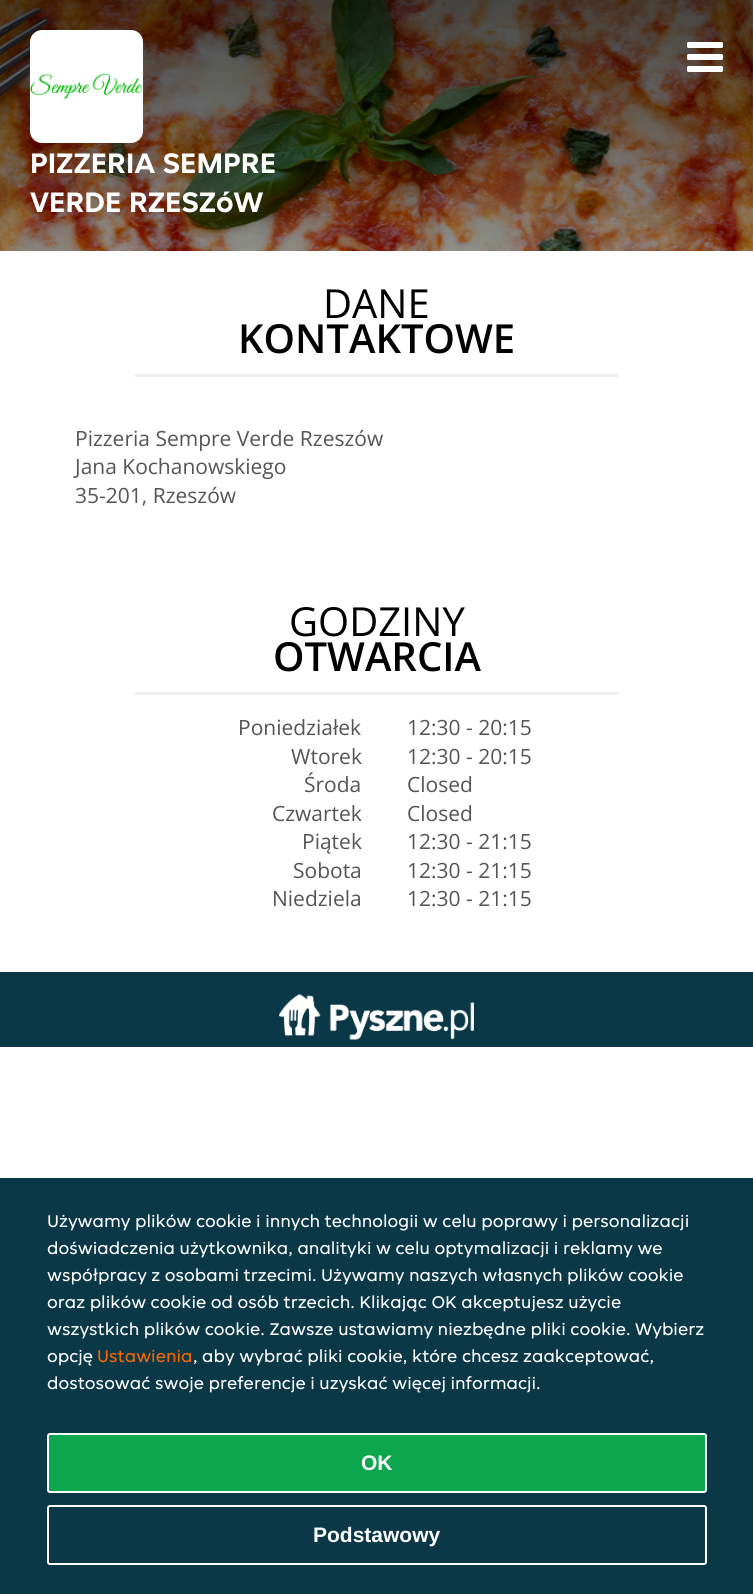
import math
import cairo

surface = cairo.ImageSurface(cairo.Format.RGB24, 753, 1594)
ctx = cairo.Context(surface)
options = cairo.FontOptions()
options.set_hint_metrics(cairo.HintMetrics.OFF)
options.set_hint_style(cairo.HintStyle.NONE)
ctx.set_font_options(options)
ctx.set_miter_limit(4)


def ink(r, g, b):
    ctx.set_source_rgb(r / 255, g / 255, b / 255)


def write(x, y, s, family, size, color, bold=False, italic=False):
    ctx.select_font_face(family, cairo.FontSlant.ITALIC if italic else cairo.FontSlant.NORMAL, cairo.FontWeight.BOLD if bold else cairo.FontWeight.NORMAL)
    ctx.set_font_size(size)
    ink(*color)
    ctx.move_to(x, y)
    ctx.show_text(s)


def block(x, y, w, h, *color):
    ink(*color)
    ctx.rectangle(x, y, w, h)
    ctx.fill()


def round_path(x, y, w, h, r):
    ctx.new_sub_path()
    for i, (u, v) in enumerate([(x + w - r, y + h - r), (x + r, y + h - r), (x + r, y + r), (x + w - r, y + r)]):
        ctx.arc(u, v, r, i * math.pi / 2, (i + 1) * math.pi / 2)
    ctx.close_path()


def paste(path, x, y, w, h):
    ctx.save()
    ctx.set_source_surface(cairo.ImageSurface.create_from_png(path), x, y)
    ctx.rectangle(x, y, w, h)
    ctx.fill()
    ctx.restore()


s1 = dict(family="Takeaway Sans", size=30, color=(255, 255, 255), bold=True)
s2 = dict(family="Open Sans", size=40, color=(0, 0, 0))
s3 = dict(family="Open Sans SemiBold", size=40, color=(0, 0, 0))
s4 = dict(family="Open Sans", size=21, color=(85, 85, 85))
s5 = dict(family="Takeaway Sans", size=18, color=(255, 255, 255))
s6 = dict(family="Takeaway Sans", size=18, color=(248, 102, 0))
s7 = dict(family="Liberation Sans", size=21, color=(255, 255, 255), bold=True)

ink(255, 255, 255)
ctx.paint()
paste("pic1.png", 0, 0, 753, 251)
gradient = cairo.LinearGradient(376, 0, 377, 750)
gradient.add_color_stop_rgba(0, 0, 0, 0, 0.7)
gradient.add_color_stop_rgba(0.33, 0, 0, 0, 0.4)
gradient.add_color_stop_rgba(0.67, 0, 0, 0, 0.2)
gradient.add_color_stop_rgba(1, 0, 0, 0, 0)
ctx.set_source(gradient)
ctx.rectangle(0, 0, 753, 251)
ctx.fill()
paste("pic2.png", 687, 42, 36, 30)
ink(255, 255, 255)
round_path(30, 30, 113, 113, 12)
ctx.fill()
paste("pic3.png", 30, 73, 113, 27)
write(30, 173, "PIZZERIA SEMPRE", **s1)
write(30, 212, "VERDE RZESZóW", **s1)
write(323, 318, "DANE", **s2)
write(238, 353, "KONTAKTOWE", **s3)
block(135, 374, 483, 3, 238, 238, 238)
write(75, 446, "Pizzeria Sempre Verde Rzeszów", **s4)
write(75, 474, "Jana Kochanowskiego", **s4)
write(75, 503, "35-201, Rzeszów", **s4)
write(289, 636, "GODZINY", **s2)
write(273, 671, "OTWARCIA", **s3)
block(135, 692, 483, 3, 238, 238, 238)
write(238, 735, "Poniedziałek", **s4)
write(407, 735, "12:30 - 20:15", **s4)
write(291, 764, "Wtorek", **s4)
write(407, 764, "12:30 - 20:15", **s4)
write(304, 792, "Środa", **s4)
write(407, 792, "Closed", **s4)
write(272, 821, "Czwartek", **s4)
write(407, 821, "Closed", **s4)
write(302, 849, "Piątek", **s4)
write(407, 849, "12:30 - 21:15", **s4)
write(293, 878, "Sobota", **s4)
write(407, 878, "12:30 - 21:15", **s4)
write(272, 906, "Niedziela", **s4)
write(407, 906, "12:30 - 21:15", **s4)
block(0, 972, 753, 75, 10, 56, 71)
paste("pic4.png", 279, 994, 195, 46)
block(0, 1178, 753, 416, 10, 56, 71)
write(47, 1227, "Używamy plików cookie i innych technologii w celu poprawy i personalizacji", **s5)
write(47, 1254, "doświadczenia użytkownika, analityki w celu optymalizacji i reklamy we", **s5)
write(47, 1281, "współpracy z osobami trzecimi. Używamy naszych własnych plików cookie", **s5)
write(47, 1308, "oraz plików cookie od osób trzecich. Klikając OK akceptujesz użycie", **s5)
write(47, 1335, "wszystkich plików cookie. Zawsze ustawiamy niezbędne pliki cookie. Wybierz", **s5)
write(47, 1362, "opcję", **s5)
write(97, 1362, "Ustawienia", **s6)
write(193, 1362, ", aby wybrać pliki cookie, które chcesz zaakceptować,", **s5)
write(47, 1389, "dostosować swoje preferencje i uzyskać więcej informacji.", **s5)
ink(12, 166, 79)
round_path(48, 1434, 658, 58, 2)
ctx.fill_preserve()
ink(255, 255, 255)
ctx.stroke()
write(361, 1470, "OK", **s7)
round_path(48, 1506, 658, 58, 2)
ctx.stroke()
write(313, 1542, "Podstawowy", **s7)
surface.write_to_png("screenshot.png")
